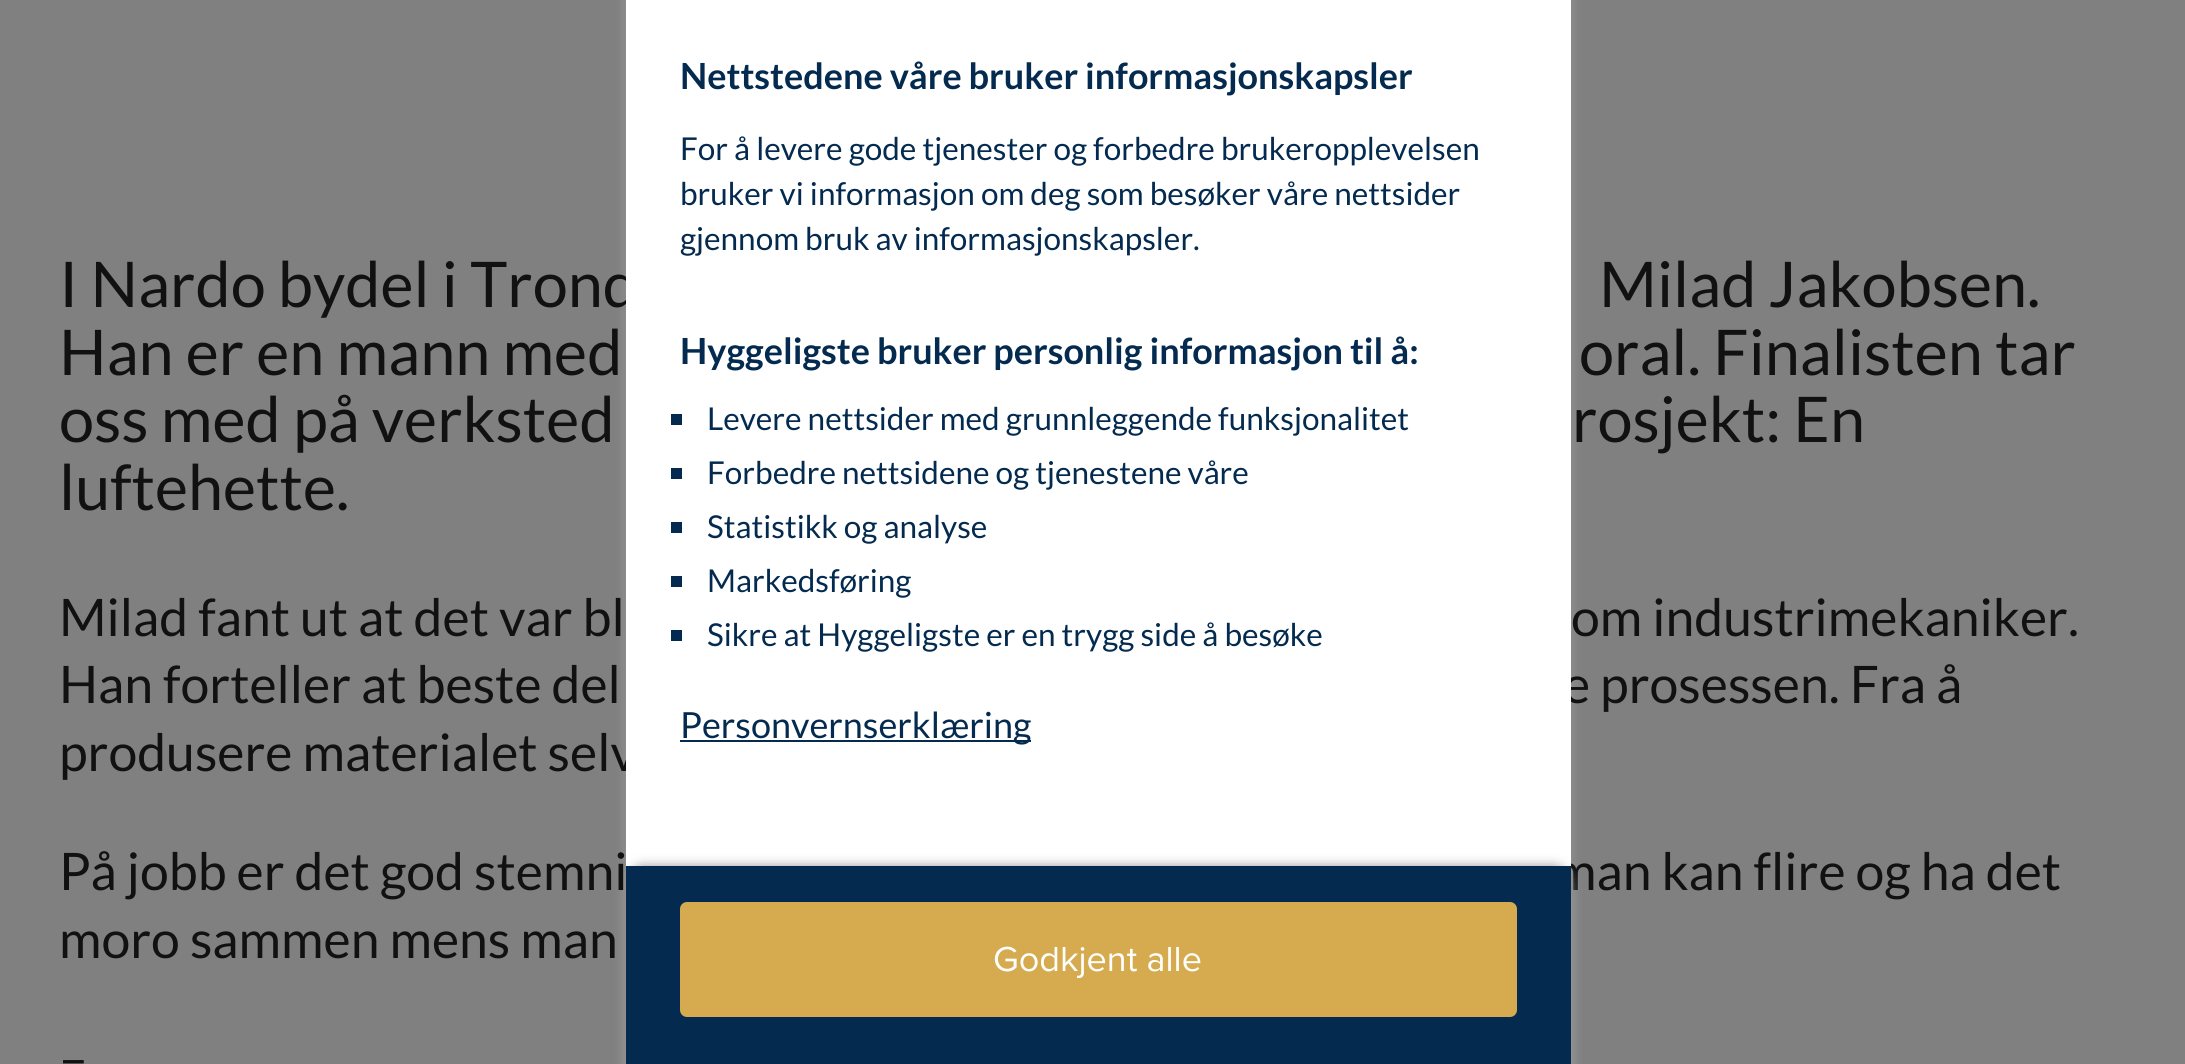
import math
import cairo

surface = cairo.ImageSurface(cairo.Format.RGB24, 2185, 1064)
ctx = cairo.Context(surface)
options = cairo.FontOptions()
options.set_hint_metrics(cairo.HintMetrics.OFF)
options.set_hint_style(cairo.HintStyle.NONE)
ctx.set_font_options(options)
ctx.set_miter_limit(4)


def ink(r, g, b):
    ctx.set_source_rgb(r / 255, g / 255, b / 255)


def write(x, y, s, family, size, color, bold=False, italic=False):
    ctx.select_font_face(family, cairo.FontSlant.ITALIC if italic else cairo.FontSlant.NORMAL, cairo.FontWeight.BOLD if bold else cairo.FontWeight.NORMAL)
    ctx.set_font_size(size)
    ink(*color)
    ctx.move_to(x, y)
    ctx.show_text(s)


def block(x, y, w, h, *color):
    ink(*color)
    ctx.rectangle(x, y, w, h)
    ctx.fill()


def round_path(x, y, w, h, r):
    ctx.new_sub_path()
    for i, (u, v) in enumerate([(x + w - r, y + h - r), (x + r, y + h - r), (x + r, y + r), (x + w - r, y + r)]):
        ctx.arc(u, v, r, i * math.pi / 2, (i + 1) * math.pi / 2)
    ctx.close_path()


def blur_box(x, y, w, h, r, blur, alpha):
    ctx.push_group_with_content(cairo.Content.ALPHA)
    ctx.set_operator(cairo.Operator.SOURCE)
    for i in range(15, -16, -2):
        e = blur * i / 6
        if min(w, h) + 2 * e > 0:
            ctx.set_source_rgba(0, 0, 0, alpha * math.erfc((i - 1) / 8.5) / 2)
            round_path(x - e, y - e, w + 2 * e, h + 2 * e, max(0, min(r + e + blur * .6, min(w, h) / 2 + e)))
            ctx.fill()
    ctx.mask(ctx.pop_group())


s1 = dict(family="Lato", size=63, color=(17, 17, 17))
s2 = dict(family="Lato", size=51.75, color=(17, 17, 17))
s3 = dict(family="Lato", size=36, color=(4, 43, 79), bold=True)
s4 = dict(family="Lato", size=31.5, color=(4, 43, 79))
s5 = dict(family="Lato", size=36, color=(4, 43, 79))
s6 = dict(family="Proxima Nova", size=36, color=(255, 255, 255))

ink(128, 128, 128)
ctx.paint()
ink(150, 150, 150)
blur_box(626, -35, 945, 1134, 18, 5.5, 1)
write(59, 307, "I Nardo bydel i Trond", **s1)
write(1563, 703, "e prosessen. Fra å", **s2)
write(59, 771, "produsere materialet selv", **s2)
write(1554, 890, "man kan flire og ha det", **s2)
block(626, 0, 945, 866, 255, 255, 255)
write(680, 89, "Nettstedene våre bruker informasjonskapsler", **s3)
write(680, 160, "For å levere gode tjenester og forbedre brukeropplevelsen", **s4)
write(680, 205, "bruker vi informasjon om deg som besøker våre nettsider", **s4)
write(680, 250, "gjennom bruk av informasjonskapsler.", **s4)
write(680, 364, "Hyggeligste bruker personlig informasjon til å:", **s3)
block(671, 414, 11, 11, 4, 43, 79)
write(707, 430, "Levere nettsider med grunnleggende funksjonalitet", **s4)
block(671, 468, 11, 11, 4, 43, 79)
write(707, 484, "Forbedre nettsidene og tjenestene våre", **s4)
block(671, 522, 11, 11, 4, 43, 79)
write(707, 538, "Statistikk og analyse", **s4)
block(671, 576, 11, 11, 4, 43, 79)
write(707, 592, "Markedsføring", **s4)
block(671, 630, 11, 11, 4, 43, 79)
write(707, 646, "Sikre at Hyggeligste er en trygg side å besøke", **s4)
block(680, 740, 351, 2, 4, 43, 79)
write(680, 738, "Personvernserklæring", **s5)
ink(150, 150, 150)
blur_box(626, 866, 945, 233, 18, 5.5, 1)
block(626, 866, 945, 198, 4, 43, 79)
ink(214, 171, 79)
round_path(680, 902, 837, 115, 7)
ctx.fill()
write(993, 971, "Godkjent alle", **s6)
write(1599, 307, "Milad Jakobsen.", **s1)
write(59, 375, "Han er en mann med", **s1)
write(1579, 375, "oral. Finalisten tar", **s1)
write(59, 442, "oss med på verksted", **s1)
write(1572, 442, "rosjekt: En", **s1)
write(59, 510, "luftehette.", **s1)
write(59, 636, "Milad fant ut at det var bl", **s2)
write(1571, 636, "om industrimekaniker.", **s2)
write(59, 703, "Han forteller at beste del", **s2)
write(59, 890, "På jobb er det god stemni", **s2)
write(59, 958, "moro sammen mens man", **s2)
write(59, 1077, "–", **s2)
surface.write_to_png("screenshot.png")
